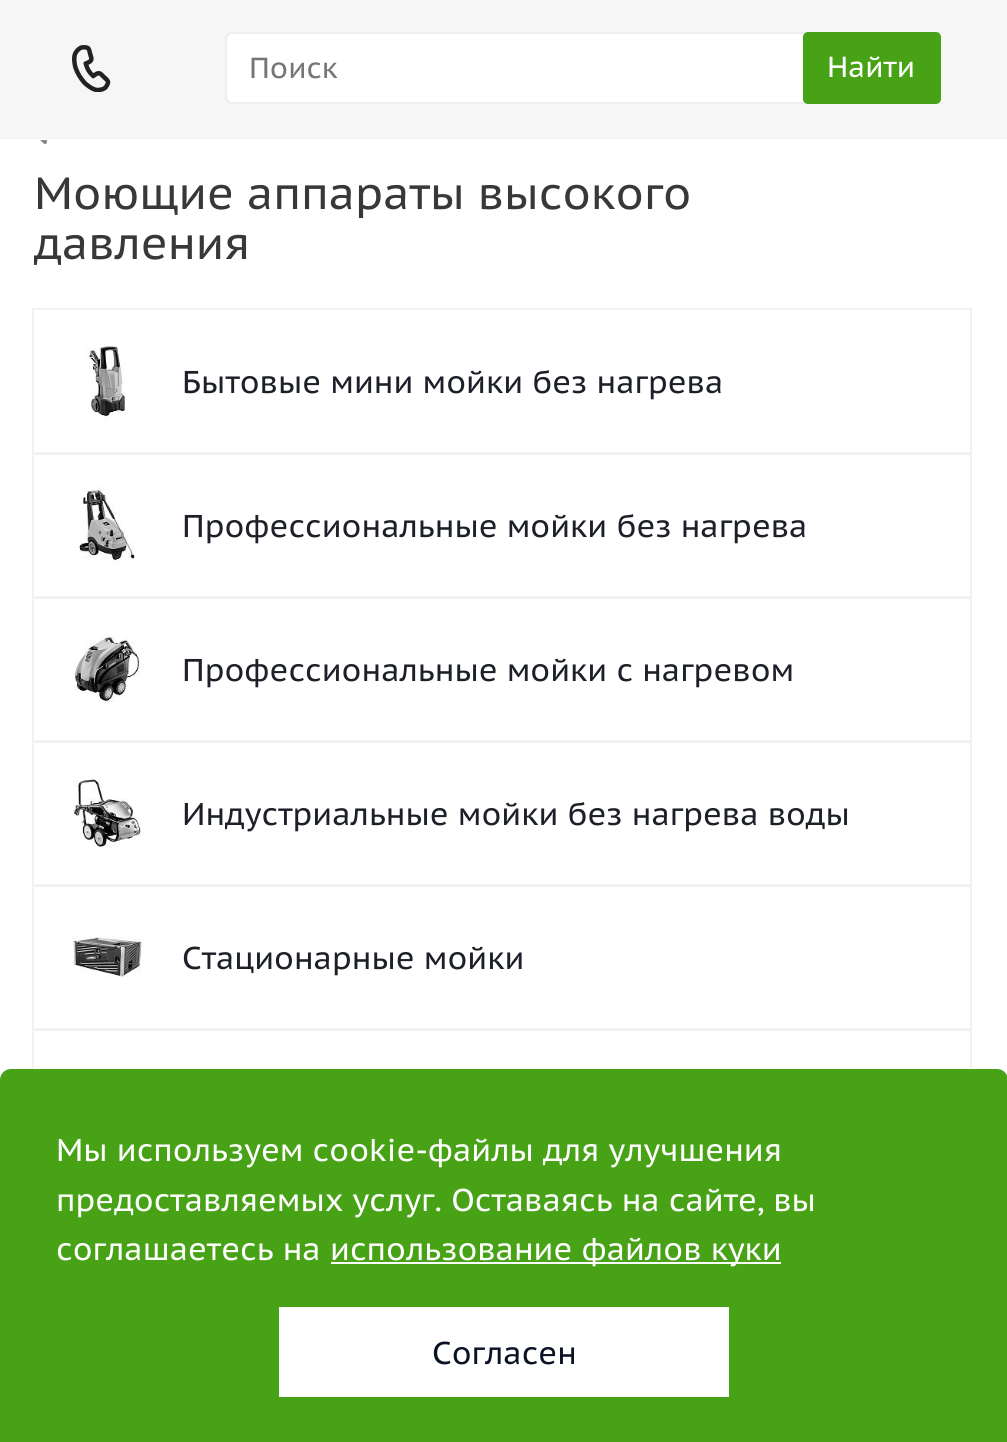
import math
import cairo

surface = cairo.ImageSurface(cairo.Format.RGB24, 1007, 1442)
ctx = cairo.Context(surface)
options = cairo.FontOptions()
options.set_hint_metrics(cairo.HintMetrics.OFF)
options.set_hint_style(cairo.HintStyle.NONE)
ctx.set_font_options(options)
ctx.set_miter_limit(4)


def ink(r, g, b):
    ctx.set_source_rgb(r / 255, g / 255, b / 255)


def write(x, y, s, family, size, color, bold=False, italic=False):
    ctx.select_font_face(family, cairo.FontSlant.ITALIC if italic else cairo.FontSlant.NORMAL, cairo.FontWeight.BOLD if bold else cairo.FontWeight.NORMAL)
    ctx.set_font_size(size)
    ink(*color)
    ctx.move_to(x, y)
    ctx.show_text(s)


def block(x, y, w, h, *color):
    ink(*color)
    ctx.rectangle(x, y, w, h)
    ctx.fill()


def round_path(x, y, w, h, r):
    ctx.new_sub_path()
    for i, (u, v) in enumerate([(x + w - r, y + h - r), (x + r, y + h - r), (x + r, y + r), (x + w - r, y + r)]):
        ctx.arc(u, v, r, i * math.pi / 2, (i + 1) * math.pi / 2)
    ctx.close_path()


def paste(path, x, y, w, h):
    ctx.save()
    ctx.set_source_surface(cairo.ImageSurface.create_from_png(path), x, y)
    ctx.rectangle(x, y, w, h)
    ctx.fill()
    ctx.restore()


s1 = dict(family="PT Sans Caption", size=29, color=(117, 117, 117))
s2 = dict(family="PT Sans Caption", size=29, color=(255, 255, 255))
s3 = dict(family="PT Sans Caption", size=45, color=(56, 56, 56))
s4 = dict(family="PT Sans Caption", size=31.5, color=(29, 32, 41))
s5 = dict(family="PT Sans Caption", size=31.5, color=(255, 255, 255))
s6 = dict(family="PT Sans Caption", size=31.5, color=(11, 18, 38))

ink(255, 255, 255)
ctx.paint()
block(0, 137, 1007, 2, 245, 245, 245)
block(0, 0, 1007, 137, 246, 246, 247)
paste("pic1.png", 72, 45, 39, 47)
ink(255, 255, 255)
round_path(226, 33, 714, 70, 6)
ctx.fill_preserve()
ink(238, 238, 238)
ctx.stroke()
write(249, 78, "Поиск", **s1)
ink(72, 162, 22)
round_path(804, 33, 136, 70, 4)
ctx.fill_preserve()
ctx.stroke()
write(827, 77, "Найти", **s2)
paste("pic2.png", 40, 140, 7, 4)
write(34, 209, "Моющие аппараты высокого", **s3)
ctx.save()
ctx.rectangle(34, 169, 940, 106)
ctx.clip()
write(34, 259, "давления", **s3)
ctx.restore()
ctx.rectangle(33, 309, 938, 145)
ink(242, 242, 242)
ctx.stroke()
paste("pic3.png", 86, 345, 42, 76)
write(182, 393, "Бытовые мини мойки без нагрева", **s4)
ctx.rectangle(33, 453, 938, 145)
ink(242, 242, 242)
ctx.stroke()
paste("pic4.png", 79, 485, 56, 80)
write(182, 537, "Профессиональные мойки без нагрева", **s4)
ctx.rectangle(33, 597, 938, 145)
ink(242, 242, 242)
ctx.stroke()
paste("pic5.png", 73, 635, 68, 68)
write(182, 681, "Профессиональные мойки с нагревом", **s4)
ctx.rectangle(33, 741, 938, 145)
ink(242, 242, 242)
ctx.stroke()
paste("pic6.png", 73, 779, 68, 68)
write(182, 825, "Индустриальные мойки без нагрева воды", **s4)
ctx.rectangle(33, 885, 938, 145)
ink(242, 242, 242)
ctx.stroke()
paste("pic7.png", 73, 936, 71, 43)
write(182, 969, "Стационарные мойки", **s4)
ctx.rectangle(33, 1029, 938, 145)
ink(242, 242, 242)
ctx.stroke()
ink(72, 162, 22)
round_path(0, 1069, 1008, 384, 11)
ctx.fill()
write(56, 1161, "Мы используем cookie-файлы для улучшения", **s5)
write(56, 1211, "предоставляемых услуг. Оставаясь на сайте, вы", **s5)
write(56, 1260, "соглашаетесь на", **s5)
block(331, 1262, 450, 2, 255, 255, 255)
write(330, 1260, "использование файлов куки", **s5)
block(279, 1307, 450, 90, 255, 255, 255)
write(432, 1364, "Согласен", **s6)
surface.write_to_png("screenshot.png")
